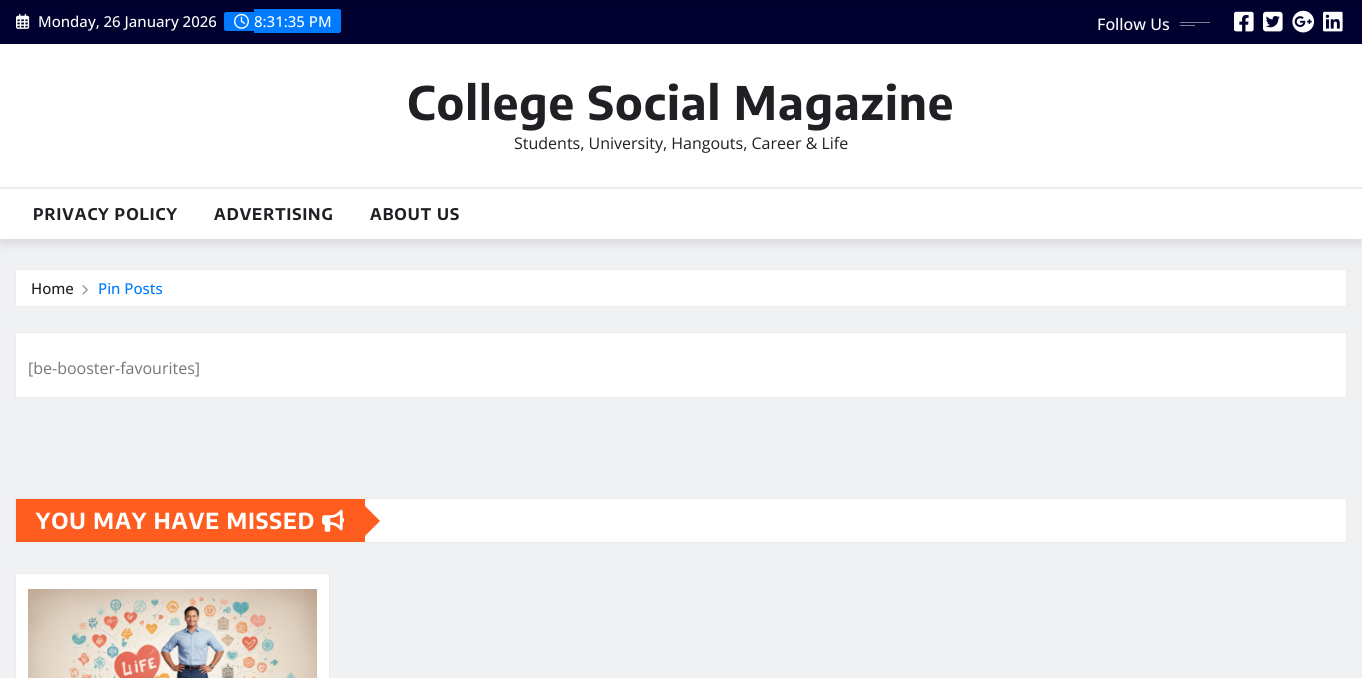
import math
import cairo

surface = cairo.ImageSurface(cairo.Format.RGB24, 1362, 678)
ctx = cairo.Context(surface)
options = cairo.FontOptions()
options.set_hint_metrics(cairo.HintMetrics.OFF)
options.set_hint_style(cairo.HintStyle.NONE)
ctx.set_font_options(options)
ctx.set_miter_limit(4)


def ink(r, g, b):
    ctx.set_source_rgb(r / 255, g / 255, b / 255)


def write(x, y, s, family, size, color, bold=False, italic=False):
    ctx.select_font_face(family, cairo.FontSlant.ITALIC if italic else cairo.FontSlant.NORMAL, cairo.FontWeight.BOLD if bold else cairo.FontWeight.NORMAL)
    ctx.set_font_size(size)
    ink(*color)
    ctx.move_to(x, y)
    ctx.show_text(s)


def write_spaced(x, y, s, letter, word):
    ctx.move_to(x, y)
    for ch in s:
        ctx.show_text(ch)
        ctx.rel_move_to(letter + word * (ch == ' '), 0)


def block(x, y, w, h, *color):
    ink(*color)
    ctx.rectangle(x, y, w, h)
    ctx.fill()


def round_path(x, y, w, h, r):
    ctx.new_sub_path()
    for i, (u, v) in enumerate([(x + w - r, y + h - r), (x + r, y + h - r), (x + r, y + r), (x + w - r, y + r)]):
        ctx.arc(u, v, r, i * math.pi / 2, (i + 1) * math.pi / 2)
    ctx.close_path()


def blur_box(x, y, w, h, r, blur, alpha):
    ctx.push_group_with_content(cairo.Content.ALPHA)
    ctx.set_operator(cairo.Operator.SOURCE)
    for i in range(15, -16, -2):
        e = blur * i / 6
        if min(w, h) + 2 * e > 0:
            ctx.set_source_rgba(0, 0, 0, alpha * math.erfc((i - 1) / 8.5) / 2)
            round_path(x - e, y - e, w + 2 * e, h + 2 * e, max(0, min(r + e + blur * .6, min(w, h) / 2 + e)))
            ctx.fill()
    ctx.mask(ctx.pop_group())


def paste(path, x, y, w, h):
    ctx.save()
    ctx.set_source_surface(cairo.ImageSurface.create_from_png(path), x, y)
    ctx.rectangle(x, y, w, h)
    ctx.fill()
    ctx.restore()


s1 = dict(family="Open Sans Medium", size=15, color=(255, 255, 255))
s2 = dict(family="Open Sans Medium", size=16, color=(255, 255, 255))
s3 = dict(family="Open Sans", size=16, color=(31, 32, 36))
s4 = dict(family="Open Sans Medium", size=15, color=(31, 32, 36))
s5 = dict(family="Open Sans Medium", size=15, color=(0, 123, 255))
s6 = dict(family="Open Sans", size=16, color=(118, 118, 118))

ink(240, 241, 243)
ctx.paint()
block(0, 1, 1362, 42, 1, 1, 47)
block(0, 0, 1362, 1, 1, 1, 42)
block(0, 43, 1362, 1, 1, 1, 42)
paste("pic1.png", 16, 13, 14, 16)
write(38, 27, "Monday, 26 January 2026", **s1)
ink(0, 123, 255)
ctx.new_path()
ctx.move_to(226, 12)
ctx.line_to(254, 12)
ctx.line_to(254, 31)
ctx.line_to(226, 31)
ctx.curve_to(225, 31, 224, 30, 224, 29)
ctx.line_to(224, 14)
ctx.curve_to(224, 13, 225, 12, 226, 12)
ctx.close_path()
ctx.fill()
paste("pic2.png", 234, 13, 15, 16)
ctx.new_path()
ctx.move_to(254, 9)
ctx.line_to(339, 9)
ctx.curve_to(340, 9, 341, 10, 341, 11)
ctx.line_to(341, 31)
ctx.curve_to(341, 32, 340, 33, 339, 33)
ctx.line_to(254, 33)
ctx.close_path()
ctx.fill()
write(254, 27, "8:31:35 PM", **s1)
write(1097, 30, "Follow Us", **s2)
block(1180, 22, 30, 1, 128, 128, 151)
block(1180, 25, 15, 1, 128, 128, 151)
paste("pic3.png", 1234, 11, 20, 21)
paste("pic4.png", 1263, 11, 20, 21)
paste("pic5.png", 1292, 10, 23, 23)
paste("pic6.png", 1323, 11, 20, 21)
block(0, 44, 1362, 143, 255, 255, 255)
ctx.select_font_face("Encode Sans Condensed", cairo.FontSlant.NORMAL, cairo.FontWeight.BOLD)
ctx.set_font_size(46)
ink(31, 32, 36)
write_spaced(407, 120, "College Social Magazine", 1, 0)
write(514, 149, "Students, University, Hangouts, Career & Life", **s3)
ink(0, 0, 0)
blur_box(0, 192, 1362, 52, 0, 5, 0.1)
block(0, 189, 1362, 50, 255, 255, 255)
block(0, 187, 1362, 2, 235, 235, 235)
ctx.select_font_face("Encode Sans Condensed", cairo.FontSlant.NORMAL, cairo.FontWeight.BOLD)
ink(31, 32, 36)
write_spaced(33, 220, "PRIVACY POLICY", 1, 0)
write_spaced(214, 220, "ADVERTISING", 1, 0)
write_spaced(370, 220, "ABOUT US", 1, 0)
ink(255, 255, 255)
ctx.rectangle(15.5, 269.5, 1331, 37)
ctx.fill_preserve()
ink(235, 235, 235)
ctx.set_line_width(1)
ctx.stroke()
write(31, 294, "Home", **s4)
paste("pic7.png", 82, 285, 6, 10)
write(98, 294, "Pin Posts", **s5)
ink(255, 255, 255)
ctx.rectangle(15.5, 332.5, 1331, 65)
ctx.fill_preserve()
ink(235, 235, 235)
ctx.stroke()
write(28, 374, "[be-booster-favourites]", **s6)
block(365, 499, 981, 43, 255, 255, 255)
ctx.rectangle(15.5, 498.5, 1331, 44)
ink(235, 235, 235)
ctx.stroke()
block(16, 499, 349, 43, 255, 93, 32)
ctx.select_font_face("Encode Sans Condensed", cairo.FontSlant.NORMAL, cairo.FontWeight.BOLD)
ctx.set_font_size(22)
ink(255, 255, 255)
write_spaced(36, 529, "YOU MAY HAVE MISSED", 1, 0)
paste("pic8.png", 322, 509, 22, 23)
ink(255, 93, 32)
ctx.new_path()
ctx.move_to(365, 536)
ctx.line_to(365, 506)
ctx.line_to(380, 521)
ctx.close_path()
ctx.fill()
ink(255, 255, 255)
ctx.rectangle(15.5, 573.5, 314, 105)
ctx.fill_preserve()
ink(235, 235, 235)
ctx.stroke()
paste("pic9.png", 28, 589, 289, 89)
surface.write_to_png("screenshot.png")
